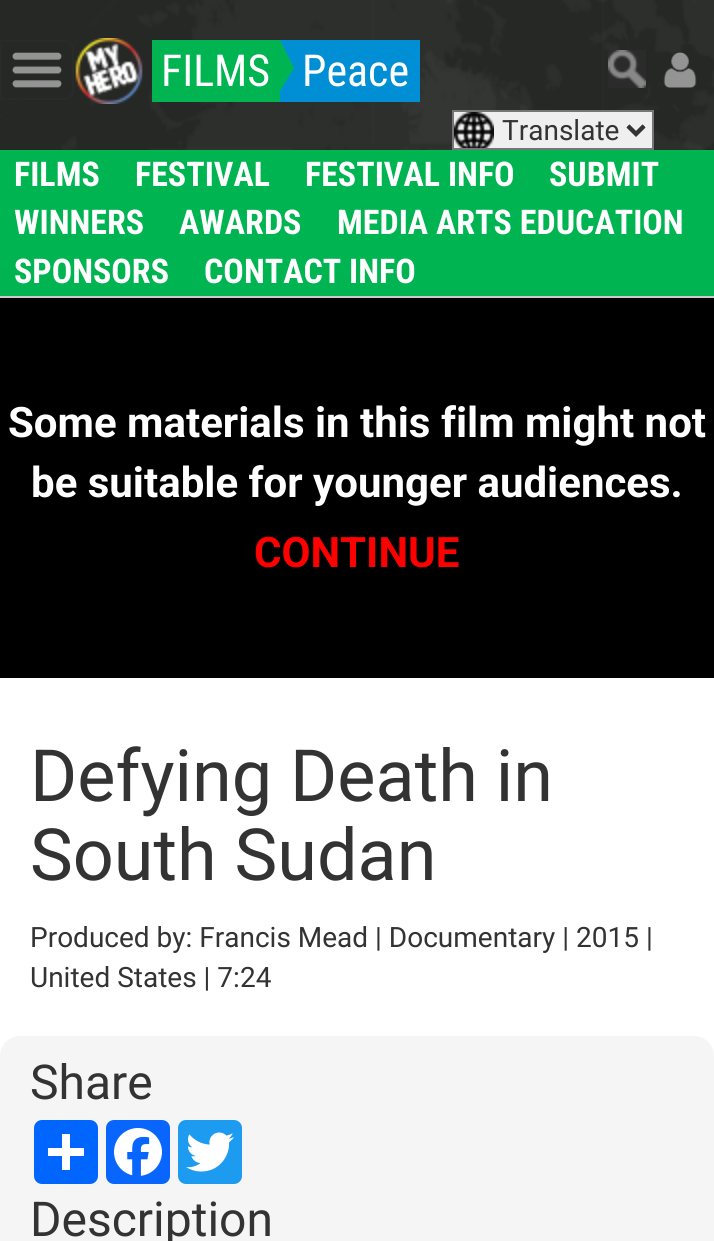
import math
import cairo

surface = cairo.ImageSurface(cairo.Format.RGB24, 714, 1241)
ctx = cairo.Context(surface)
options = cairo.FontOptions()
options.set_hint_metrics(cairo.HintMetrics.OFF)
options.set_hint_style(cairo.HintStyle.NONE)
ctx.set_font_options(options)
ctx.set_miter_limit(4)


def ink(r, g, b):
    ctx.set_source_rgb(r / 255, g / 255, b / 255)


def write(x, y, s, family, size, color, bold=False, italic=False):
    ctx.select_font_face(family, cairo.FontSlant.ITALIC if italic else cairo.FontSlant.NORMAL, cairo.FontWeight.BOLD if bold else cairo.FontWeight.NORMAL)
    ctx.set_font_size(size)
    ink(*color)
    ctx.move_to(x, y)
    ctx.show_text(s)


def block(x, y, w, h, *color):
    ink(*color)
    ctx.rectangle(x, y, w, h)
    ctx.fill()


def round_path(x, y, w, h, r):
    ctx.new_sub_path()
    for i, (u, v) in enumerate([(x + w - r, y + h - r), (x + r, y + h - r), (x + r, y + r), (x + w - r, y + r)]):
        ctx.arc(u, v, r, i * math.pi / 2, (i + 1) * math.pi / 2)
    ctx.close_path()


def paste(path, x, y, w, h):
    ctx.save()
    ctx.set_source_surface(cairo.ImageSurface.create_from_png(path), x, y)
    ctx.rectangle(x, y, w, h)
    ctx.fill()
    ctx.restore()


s1 = dict(family="Roboto Condensed", size=44, color=(255, 255, 255))
s2 = dict(family="Roboto", size=28, color=(51, 51, 51))
s3 = dict(family="Roboto Condensed", size=34, color=(255, 255, 255), bold=True)
s4 = dict(family="Roboto", size=42, color=(255, 255, 255), bold=True)
s5 = dict(family="Roboto", size=42, color=(255, 0, 0), bold=True)
s6 = dict(family="Roboto", size=72, color=(51, 51, 51))
s7 = dict(family="Roboto", size=48, color=(51, 51, 51))

ink(255, 255, 255)
ctx.paint()
paste("pic1.png", 0, 0, 714, 150)
ctx.new_path()
ctx.move_to(1, 41)
ctx.line_to(64, 41)
ctx.curve_to(69, 41, 73, 45, 73, 50)
ctx.line_to(73, 90)
ctx.curve_to(73, 95, 69, 99, 64, 99)
ctx.line_to(1, 99)
ctx.close_path()
ink(41, 42, 41)
ctx.stroke()
paste("pic2.png", 12, 52, 50, 36)
paste("pic3.png", 75, 38, 68, 66)
block(152, 40, 128, 62, 0, 180, 81)
write(161, 86, "FILMS", **s1)
block(280, 40, 140, 62, 0, 142, 213)
ctx.save()
ctx.rectangle(278, 40, 50, 60)
ctx.clip()
ink(0, 180, 81)
ctx.new_path()
ctx.move_to(294, 68)
ctx.line_to(278, 36)
ctx.line_to(278, 94)
ctx.close_path()
ctx.fill()
ctx.restore()
write(302, 86, "Peace", **s1)
paste("pic4.png", 608, 50, 38, 38)
block(454, 112, 198, 36, 239, 239, 239)
paste("pic5.png", 454, 112, 192, 36)
ctx.rectangle(453, 111, 200, 38)
ink(118, 118, 118)
ctx.stroke()
ctx.new_path()
ctx.move_to(628, 126)
ctx.line_to(636, 134)
ctx.line_to(644, 126)
ink(51, 51, 51)
ctx.set_line_width(4)
ctx.stroke()
write(502, 140, "Translate", **s2)
paste("pic6.png", 663, 52, 34, 36)
block(0, 150, 714, 146, 0, 180, 81)
block(0, 296, 714, 2, 204, 204, 204)
write(14, 186, "FILMS", **s3)
write(135, 186, "FESTIVAL", **s3)
write(305, 186, "FESTIVAL INFO", **s3)
write(549, 186, "SUBMIT", **s3)
write(14, 234, "WINNERS", **s3)
write(179, 234, "AWARDS", **s3)
write(337, 234, "MEDIA ARTS EDUCATION", **s3)
write(14, 283, "SPONSORS", **s3)
write(204, 283, "CONTACT INFO", **s3)
block(0, 298, 714, 380, 0, 0, 0)
write(8, 437, "Some materials in this film might not", **s4)
write(31, 497, "be suitable for younger audiences.", **s4)
write(254, 567, "CONTINUE", **s5)
write(30, 801, "Defying Death in", **s6)
write(30, 880, "South Sudan", **s6)
write(30, 947, "Produced by: Francis Mead | Documentary | 2015 |", **s2)
write(30, 987, "United States | 7:24", **s2)
ink(245, 245, 245)
round_path(0, 1036, 714, 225, 20)
ctx.fill()
write(30, 1099, "Share", **s7)
ink(1, 102, 255)
round_path(34, 1120, 64, 64, 8)
ctx.fill()
block(62, 1134, 8, 36, 255, 255, 255)
block(48, 1148, 36, 8, 255, 255, 255)
ink(8, 102, 255)
round_path(106, 1120, 64, 64, 8)
ctx.fill()
paste("pic7.png", 114, 1128, 48, 48)
ink(29, 155, 240)
round_path(178, 1120, 64, 64, 8)
ctx.fill()
paste("pic8.png", 186, 1132, 48, 40)
write(30, 1236, "Description", **s7)
surface.write_to_png("screenshot.png")
